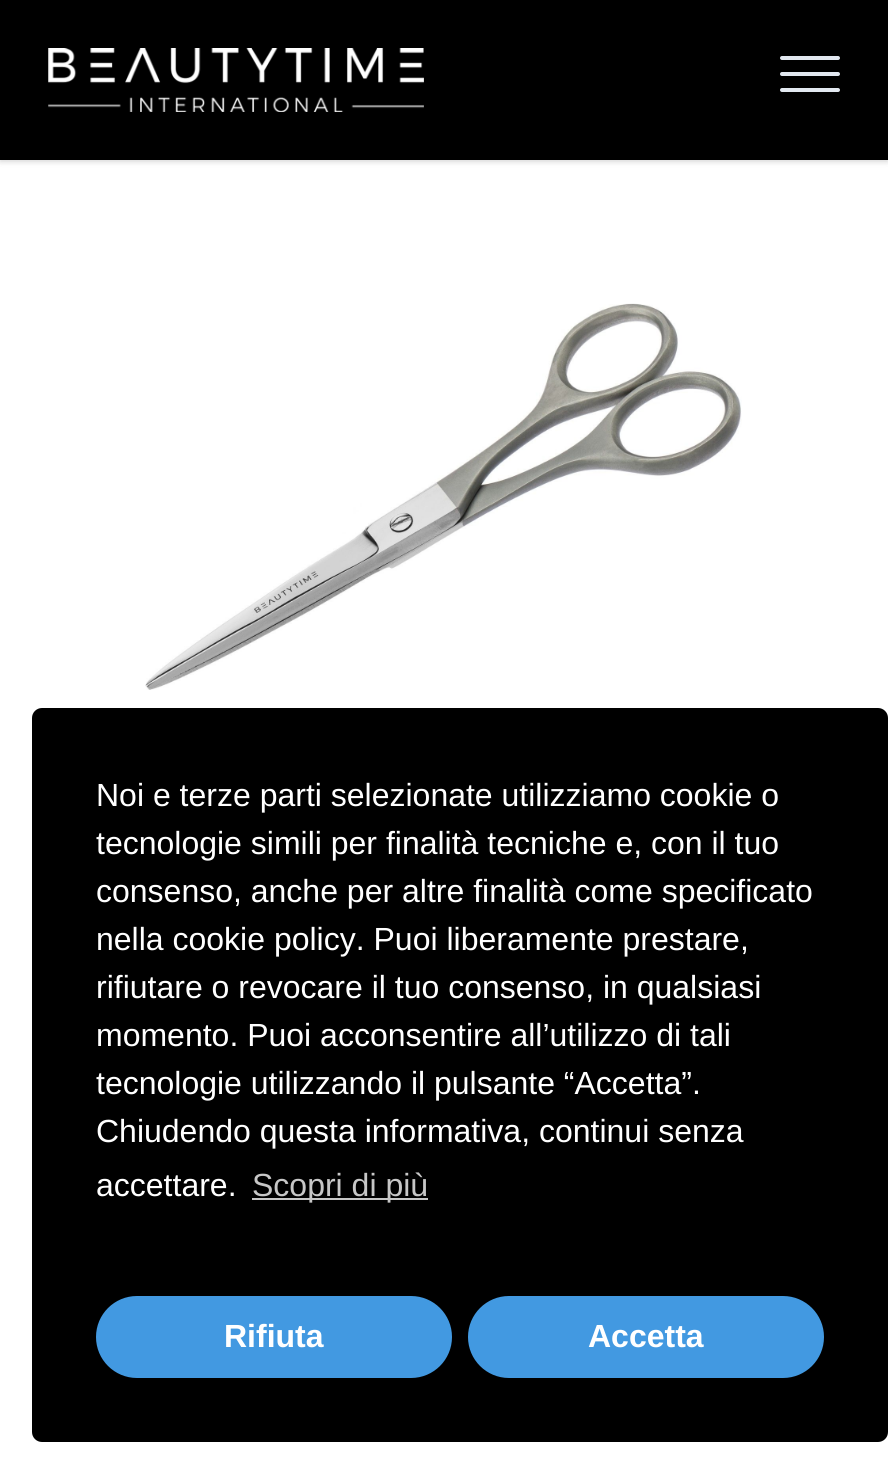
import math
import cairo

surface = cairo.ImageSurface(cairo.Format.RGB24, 888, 1473)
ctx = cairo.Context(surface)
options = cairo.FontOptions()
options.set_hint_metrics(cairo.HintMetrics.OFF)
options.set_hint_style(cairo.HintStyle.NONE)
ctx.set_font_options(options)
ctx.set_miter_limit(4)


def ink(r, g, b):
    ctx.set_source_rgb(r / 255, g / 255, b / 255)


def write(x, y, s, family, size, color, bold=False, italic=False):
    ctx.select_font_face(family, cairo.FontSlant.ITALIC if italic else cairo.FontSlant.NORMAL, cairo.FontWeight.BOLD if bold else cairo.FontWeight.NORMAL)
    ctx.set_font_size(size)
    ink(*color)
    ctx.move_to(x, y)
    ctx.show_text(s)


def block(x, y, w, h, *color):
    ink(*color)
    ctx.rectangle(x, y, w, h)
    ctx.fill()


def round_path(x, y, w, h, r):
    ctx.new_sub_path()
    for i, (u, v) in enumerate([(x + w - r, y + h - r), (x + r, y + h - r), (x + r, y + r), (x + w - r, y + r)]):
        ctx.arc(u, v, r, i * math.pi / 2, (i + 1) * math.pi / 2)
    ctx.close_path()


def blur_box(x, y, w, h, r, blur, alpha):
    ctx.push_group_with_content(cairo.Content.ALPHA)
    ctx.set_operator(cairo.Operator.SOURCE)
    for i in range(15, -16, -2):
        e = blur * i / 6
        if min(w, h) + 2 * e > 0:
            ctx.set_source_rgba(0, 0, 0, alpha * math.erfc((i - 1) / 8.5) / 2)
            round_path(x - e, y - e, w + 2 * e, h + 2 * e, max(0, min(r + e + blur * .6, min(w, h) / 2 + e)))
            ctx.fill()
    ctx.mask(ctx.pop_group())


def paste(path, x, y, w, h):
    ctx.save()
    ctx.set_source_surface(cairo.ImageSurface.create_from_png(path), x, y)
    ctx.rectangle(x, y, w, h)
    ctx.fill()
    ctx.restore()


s1 = dict(family="Liberation Sans", size=32, color=(255, 255, 255))
s2 = dict(family="Liberation Sans", size=32, color=(199, 199, 199))
s3 = dict(family="Liberation Sans", size=32, color=(255, 255, 255), bold=True)

ink(255, 255, 255)
ctx.paint()
ink(0, 0, 0)
blur_box(0, 2, 888, 160, 0, 2, 0.06)
blur_box(0, 2, 888, 160, 0, 3, 0.1)
block(0, 0, 888, 160, 0, 0, 0)
paste("pic1.png", 48, 48, 376, 64)
ink(226, 232, 240)
round_path(780, 72, 60, 4, 2)
ctx.fill()
round_path(780, 56, 60, 4, 2)
ctx.fill()
round_path(780, 88, 60, 4, 2)
ctx.fill()
paste("pic2.png", 145, 303, 597, 387)
ink(0, 0, 0)
round_path(32, 708, 856, 734, 10)
ctx.fill()
write(96, 806, "Noi e terze parti selezionate utilizziamo cookie o", **s1)
write(96, 854, "tecnologie simili per finalità tecniche e, con il tuo", **s1)
write(96, 902, "consenso, anche per altre finalità come specificato", **s1)
write(96, 950, "nella cookie policy. Puoi liberamente prestare,", **s1)
write(96, 998, "rifiutare o revocare il tuo consenso, in qualsiasi", **s1)
write(96, 1046, "momento. Puoi acconsentire all’utilizzo di tali", **s1)
write(96, 1094, "tecnologie utilizzando il pulsante “Accetta”.", **s1)
write(96, 1142, "Chiudendo questa informativa, continui senza", **s1)
write(96, 1196, "accettare.", **s1)
block(252, 1198, 176, 2, 199, 199, 199)
write(252, 1196, "Scopri di più", **s2)
ink(66, 153, 225)
round_path(98, 1298, 352, 78, 39)
ctx.fill_preserve()
ctx.set_line_width(4)
ctx.stroke()
write(224, 1347, "Rifiuta", **s3)
ink(66, 153, 225)
round_path(470, 1298, 352, 78, 39)
ctx.fill_preserve()
ctx.stroke()
write(588, 1347, "Accetta", **s3)
surface.write_to_png("screenshot.png")
